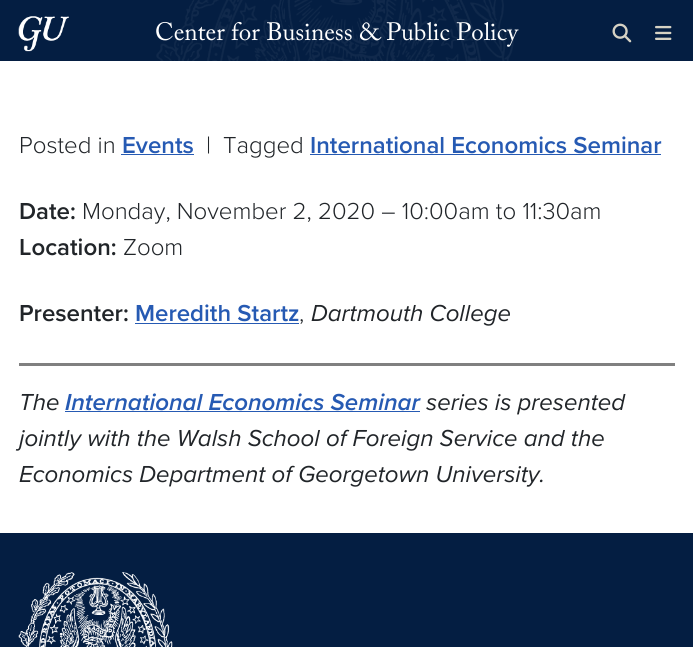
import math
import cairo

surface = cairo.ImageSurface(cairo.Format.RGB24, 693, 647)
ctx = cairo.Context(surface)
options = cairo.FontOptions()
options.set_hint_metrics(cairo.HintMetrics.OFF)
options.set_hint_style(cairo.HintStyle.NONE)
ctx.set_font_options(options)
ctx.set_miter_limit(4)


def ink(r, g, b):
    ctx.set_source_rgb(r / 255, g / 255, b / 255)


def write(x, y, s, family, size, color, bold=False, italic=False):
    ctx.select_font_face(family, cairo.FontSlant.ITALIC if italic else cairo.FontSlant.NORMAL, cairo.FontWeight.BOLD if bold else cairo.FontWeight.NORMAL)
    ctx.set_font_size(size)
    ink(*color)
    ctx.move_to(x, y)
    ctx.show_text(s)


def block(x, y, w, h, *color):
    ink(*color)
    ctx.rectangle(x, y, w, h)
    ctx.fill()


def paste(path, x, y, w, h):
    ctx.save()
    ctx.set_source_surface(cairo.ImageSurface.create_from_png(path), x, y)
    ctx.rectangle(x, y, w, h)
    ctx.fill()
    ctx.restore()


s1 = dict(family="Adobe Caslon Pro", size=25, color=(255, 255, 255))
s2 = dict(family="Proxima Nova Light", size=24, color=(33, 37, 41))
s3 = dict(family="Proxima Nova SemiBold", size=24, color=(38, 90, 179))
s4 = dict(family="Proxima Nova SemiBold", size=24, color=(33, 37, 41))
s5 = dict(family="Proxima Nova", size=24, color=(33, 37, 41), italic=True)
s6 = dict(family="Proxima Nova SemiBold", size=24, color=(38, 90, 179), italic=True)

ink(255, 255, 255)
ctx.paint()
block(0, 0, 693, 61, 4, 30, 66)
paste("pic1.png", 156, 0, 358, 61)
paste("pic2.png", 18, 16, 51, 36)
write(155, 40, "Center for Business & Public Policy", **s1)
paste("pic3.png", 612, 23, 20, 20)
paste("pic4.png", 655, 25, 17, 15)
write(19, 153, "Posted in", **s2)
write(122, 153, "Events", **s3)
block(121, 154, 73, 1, 38, 90, 179)
write(206, 153, "|", **s2)
write(223, 153, "Tagged", **s2)
write(310, 153, "International Economics Seminar", **s3)
block(310, 154, 351, 1, 38, 90, 179)
write(19, 219, "Date:", **s4)
write(82, 219, "Monday, November 2, 2020 – 10:00am to 11:30am", **s2)
write(19, 255, "Location:", **s4)
write(123, 255, "Zoom", **s2)
write(19, 321, "Presenter:", **s4)
write(135, 321, "Meredith Startz", **s3)
block(135, 323, 164, 1, 38, 90, 179)
write(299, 321, ",", **s2)
write(311, 321, "Dartmouth College", **s5)
block(19, 363, 656, 3, 128, 128, 128)
write(19, 410, "The", **s5)
write(65, 410, "International Economics Seminar", **s6)
block(65, 411, 355, 1, 38, 90, 179)
write(426, 410, "series is presented", **s5)
write(19, 446, "jointly with the Walsh School of Foreign Service and the", **s5)
write(19, 482, "Economics Department of Georgetown University.", **s5)
block(0, 533, 693, 114, 4, 30, 66)
paste("pic5.png", 18, 572, 155, 75)
surface.write_to_png("screenshot.png")
